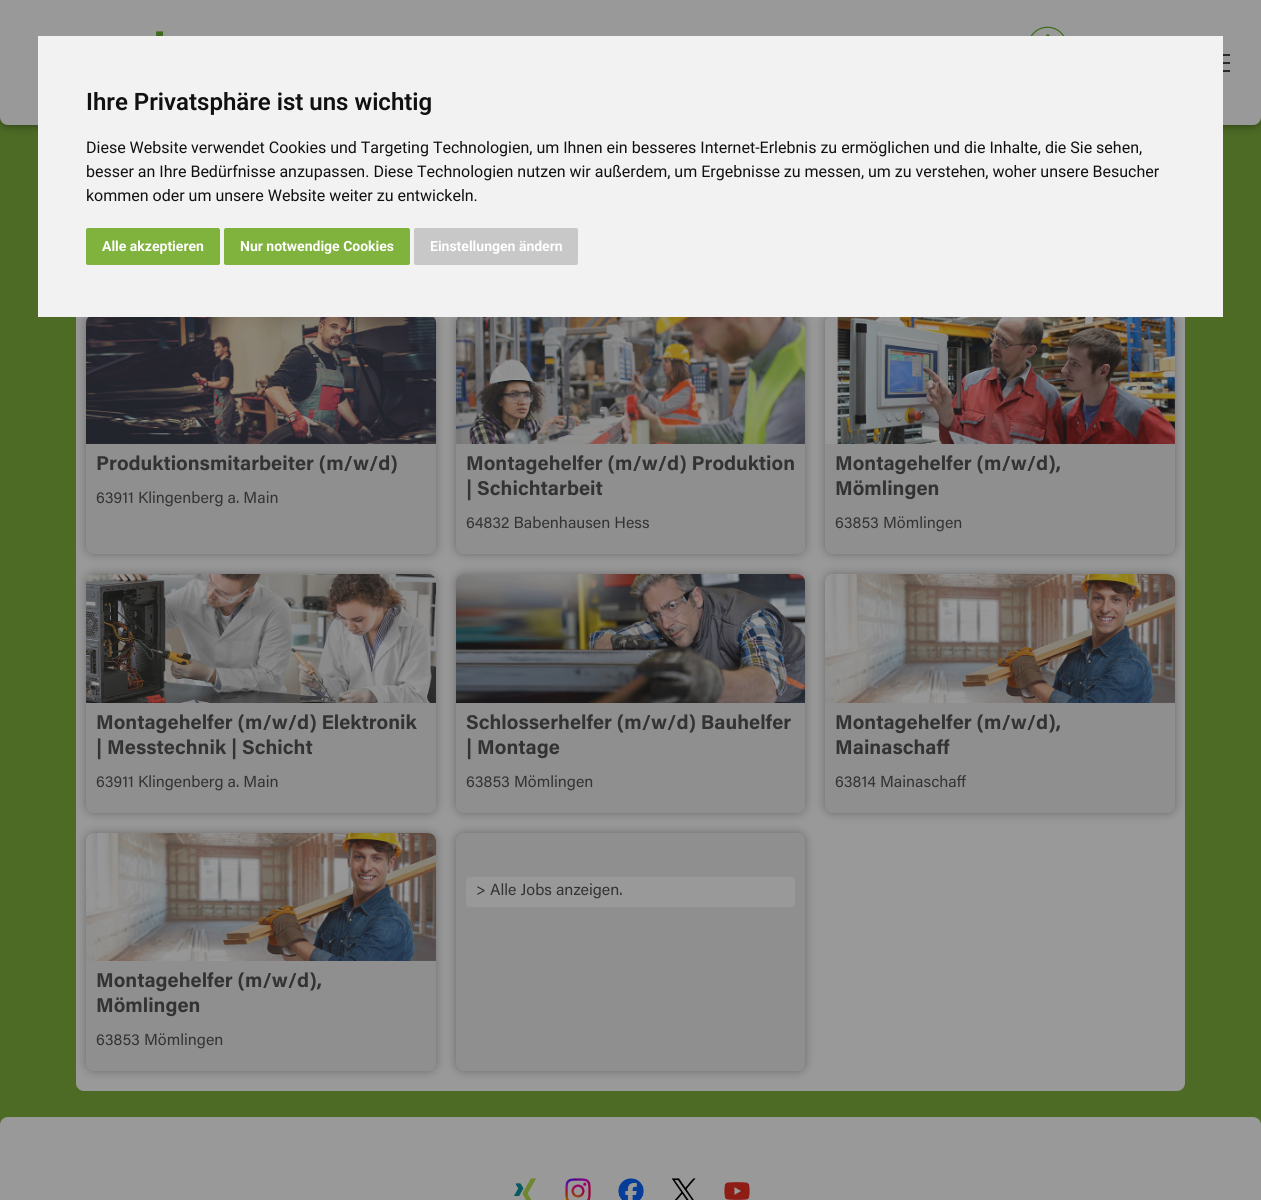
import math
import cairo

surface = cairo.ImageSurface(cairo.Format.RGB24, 1261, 1200)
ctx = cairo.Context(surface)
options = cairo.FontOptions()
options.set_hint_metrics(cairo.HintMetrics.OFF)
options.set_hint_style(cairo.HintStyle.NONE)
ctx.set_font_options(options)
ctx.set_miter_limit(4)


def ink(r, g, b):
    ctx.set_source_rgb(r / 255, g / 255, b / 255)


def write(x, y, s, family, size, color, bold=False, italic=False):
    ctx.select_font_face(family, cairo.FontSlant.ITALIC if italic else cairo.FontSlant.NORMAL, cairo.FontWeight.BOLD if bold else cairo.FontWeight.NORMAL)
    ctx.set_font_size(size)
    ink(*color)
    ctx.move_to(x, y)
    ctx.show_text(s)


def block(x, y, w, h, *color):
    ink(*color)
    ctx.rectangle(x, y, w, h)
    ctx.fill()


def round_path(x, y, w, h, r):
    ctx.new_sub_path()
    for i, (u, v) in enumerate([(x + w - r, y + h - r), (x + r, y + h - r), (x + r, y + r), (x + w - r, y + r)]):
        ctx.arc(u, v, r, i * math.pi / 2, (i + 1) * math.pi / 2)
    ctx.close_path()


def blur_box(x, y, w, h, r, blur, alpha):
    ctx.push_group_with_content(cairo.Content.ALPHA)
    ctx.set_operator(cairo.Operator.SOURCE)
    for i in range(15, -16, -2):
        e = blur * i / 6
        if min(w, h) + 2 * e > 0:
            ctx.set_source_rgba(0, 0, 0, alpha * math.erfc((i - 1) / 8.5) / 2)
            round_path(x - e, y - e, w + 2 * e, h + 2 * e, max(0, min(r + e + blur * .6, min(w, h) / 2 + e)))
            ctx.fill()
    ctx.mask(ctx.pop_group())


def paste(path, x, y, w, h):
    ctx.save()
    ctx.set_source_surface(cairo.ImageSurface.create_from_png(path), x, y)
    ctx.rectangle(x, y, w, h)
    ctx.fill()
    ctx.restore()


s1 = dict(family="Roboto SemiBold", size=24, color=(17, 17, 17))
s2 = dict(family="Roboto", size=16, color=(17, 17, 17))
s3 = dict(family="Roboto", size=14, color=(255, 255, 255), bold=True)
s4 = dict(family="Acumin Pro", size=20, color=(51, 51, 51), bold=True)
s5 = dict(family="Acumin Pro", size=16, color=(51, 51, 51))

ink(77, 107, 37)
ctx.paint()
ink(0, 0, 0)
blur_box(0, 0, 1261, 125, 8, 5, 0.5)
ink(153, 153, 153)
ctx.new_path()
ctx.move_to(0, 0)
ctx.line_to(1261, 0)
ctx.line_to(1261, 117)
ctx.curve_to(1261, 121.5, 1257.5, 125, 1253, 125)
ctx.line_to(8, 125)
ctx.curve_to(3.5, 125, 0, 121.5, 0, 117)
ctx.close_path()
ctx.fill()
round_path(76, 173, 1109, 918, 8)
ctx.fill()
ink(0, 0, 0)
blur_box(86, 315, 350, 239, 8, 5, 0.3)
ink(143, 143, 143)
round_path(86, 315, 350, 239, 8)
ctx.fill()
ink(0, 0, 0)
blur_box(456, 315, 349, 239, 8, 5, 0.3)
ink(143, 143, 143)
round_path(456, 315, 349, 239, 8)
ctx.fill()
ink(0, 0, 0)
blur_box(825, 315, 350, 239, 8, 5, 0.3)
ink(143, 143, 143)
round_path(825, 315, 350, 239, 8)
ctx.fill()
block(38, 36, 1185, 281, 242, 242, 242)
write(86, 110, "Ihre Privatsphäre ist uns wichtig", **s1)
write(86, 153, "Diese Website verwendet Cookies und Targeting Technologien, um Ihnen ein besseres Internet-Erlebnis zu ermöglichen und die Inhalte, die Sie sehen,", **s2)
write(86, 177, "besser an Ihre Bedürfnisse anzupassen. Diese Technologien nutzen wir außerdem, um Ergebnisse zu messen, um zu verstehen, woher unsere Besucher", **s2)
write(86, 201, "kommen oder um unsere Website weiter zu entwickeln.", **s2)
ink(128, 179, 61)
round_path(86, 228, 134, 37, 2)
ctx.fill()
write(102, 251, "Alle akzeptieren", **s3)
ink(128, 179, 61)
round_path(224, 228, 186, 37, 2)
ctx.fill()
write(240, 251, "Nur notwendige Cookies", **s3)
ink(200, 200, 200)
round_path(414, 228, 164, 37, 2)
ctx.fill()
write(430, 251, "Einstellungen ändern", **s3)
paste("pic1.png", 156, 31, 8, 5)
paste("pic2.png", 1030, 26, 35, 10)
block(1223, 54, 7, 2, 41, 41, 41)
block(1223, 62, 7, 2, 41, 41, 41)
block(1223, 70, 7, 2, 41, 41, 41)
paste("pic3.png", 86, 317, 350, 127)
write(96, 470, "Produktionsmitarbeiter (m/w/d)", **s4)
write(96, 503, "63911 Klingenberg a. Main", **s5)
paste("pic4.png", 456, 317, 349, 127)
write(466, 470, "Montagehelfer (m/w/d) Produktion", **s4)
write(466, 495, "| Schichtarbeit", **s4)
write(466, 528, "64832 Babenhausen Hess", **s5)
paste("pic5.png", 825, 317, 350, 127)
write(835, 470, "Montagehelfer (m/w/d),", **s4)
write(835, 495, "Mömlingen", **s4)
write(835, 528, "63853 Mömlingen", **s5)
ink(0, 0, 0)
blur_box(86, 574, 350, 239, 8, 5, 0.3)
ink(143, 143, 143)
round_path(86, 574, 350, 239, 8)
ctx.fill()
paste("pic6.png", 86, 574, 350, 129)
write(96, 729, "Montagehelfer (m/w/d) Elektronik", **s4)
write(96, 754, "| Messtechnik | Schicht", **s4)
write(96, 787, "63911 Klingenberg a. Main", **s5)
ink(0, 0, 0)
blur_box(456, 574, 349, 239, 8, 5, 0.3)
ink(143, 143, 143)
round_path(456, 574, 349, 239, 8)
ctx.fill()
paste("pic7.png", 456, 574, 349, 129)
write(466, 729, "Schlosserhelfer (m/w/d) Bauhelfer", **s4)
write(466, 754, "| Montage", **s4)
write(466, 787, "63853 Mömlingen", **s5)
ink(0, 0, 0)
blur_box(825, 574, 350, 239, 8, 5, 0.3)
ink(143, 143, 143)
round_path(825, 574, 350, 239, 8)
ctx.fill()
paste("pic8.png", 825, 574, 350, 129)
write(835, 729, "Montagehelfer (m/w/d),", **s4)
write(835, 754, "Mainaschaff", **s4)
write(835, 787, "63814 Mainaschaff", **s5)
ink(0, 0, 0)
blur_box(456, 833, 349, 238, 8, 5, 0.3)
ink(143, 143, 143)
round_path(456, 833, 349, 238, 8)
ctx.fill()
ink(153, 153, 153)
round_path(466, 877, 329, 30, 4)
ctx.fill()
write(476, 895, "> Alle Jobs anzeigen.", **s5)
ink(0, 0, 0)
blur_box(86, 833, 350, 238, 8, 5, 0.3)
ink(143, 143, 143)
round_path(86, 833, 350, 238, 8)
ctx.fill()
paste("pic9.png", 86, 833, 350, 128)
write(96, 987, "Montagehelfer (m/w/d),", **s4)
write(96, 1012, "Mömlingen", **s4)
write(96, 1045, "63853 Mömlingen", **s5)
ink(153, 153, 153)
ctx.new_path()
ctx.move_to(8, 1117)
ctx.line_to(1253, 1117)
ctx.curve_to(1257.5, 1117, 1261, 1120.5, 1261, 1125)
ctx.line_to(1261, 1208)
ctx.line_to(0, 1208)
ctx.line_to(0, 1125)
ctx.curve_to(0, 1120.5, 3.5, 1117, 8, 1117)
ctx.close_path()
ctx.fill()
paste("pic10.png", 514, 1178, 22, 22)
paste("pic11.png", 565, 1178, 26, 22)
paste("pic12.png", 618, 1178, 26, 22)
paste("pic13.png", 671, 1178, 25, 22)
paste("pic14.png", 724, 1182, 26, 18)
surface.write_to_png("screenshot.png")
